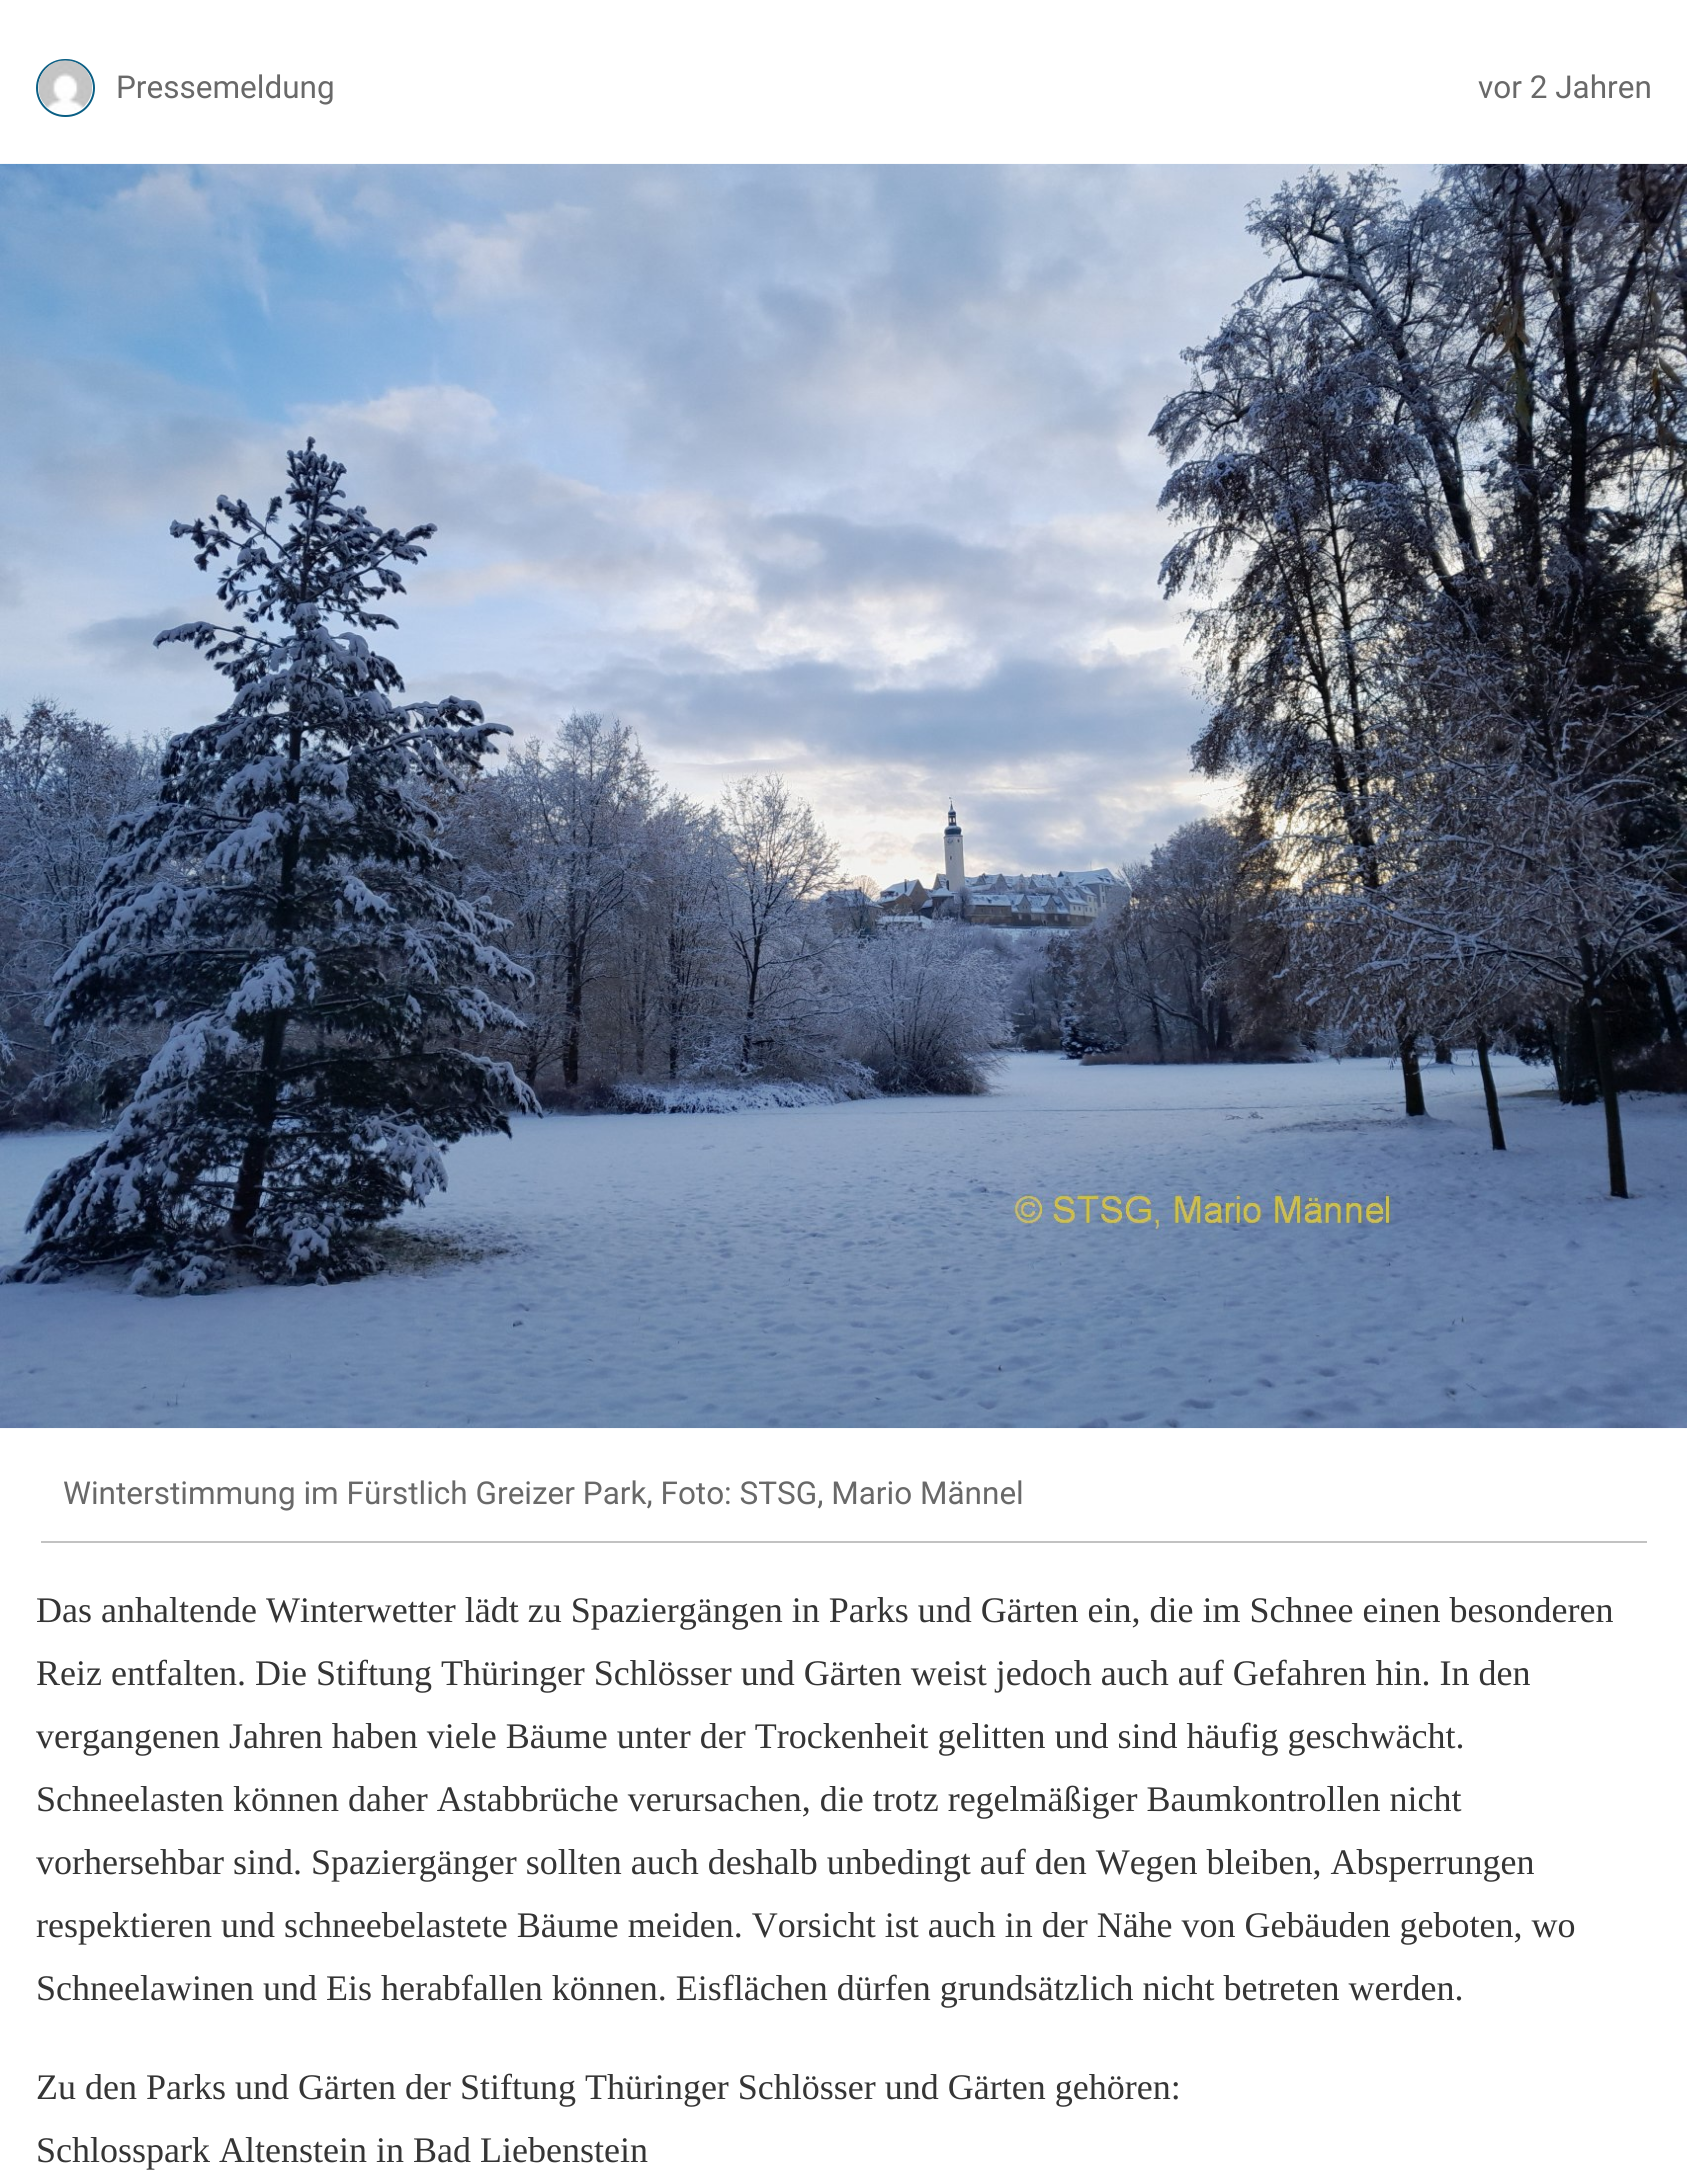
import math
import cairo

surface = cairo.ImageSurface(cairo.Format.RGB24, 1687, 2172)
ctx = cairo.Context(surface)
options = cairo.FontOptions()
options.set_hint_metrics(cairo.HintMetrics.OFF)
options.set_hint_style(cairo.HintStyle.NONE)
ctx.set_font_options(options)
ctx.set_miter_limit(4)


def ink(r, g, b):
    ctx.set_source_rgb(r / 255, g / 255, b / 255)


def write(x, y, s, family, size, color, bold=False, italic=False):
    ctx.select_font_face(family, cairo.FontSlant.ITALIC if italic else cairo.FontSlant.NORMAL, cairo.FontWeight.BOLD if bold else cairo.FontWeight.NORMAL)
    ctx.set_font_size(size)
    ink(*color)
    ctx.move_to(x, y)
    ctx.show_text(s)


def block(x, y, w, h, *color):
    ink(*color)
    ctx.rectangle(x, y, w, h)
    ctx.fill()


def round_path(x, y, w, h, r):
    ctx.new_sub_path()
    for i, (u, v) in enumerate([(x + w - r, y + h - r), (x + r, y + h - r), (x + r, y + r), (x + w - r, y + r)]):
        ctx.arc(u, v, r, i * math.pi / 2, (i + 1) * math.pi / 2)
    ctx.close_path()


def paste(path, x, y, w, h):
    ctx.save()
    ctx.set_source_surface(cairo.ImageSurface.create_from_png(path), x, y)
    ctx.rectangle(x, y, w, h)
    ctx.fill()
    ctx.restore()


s1 = dict(family="Roboto", size=31.5, color=(105, 105, 105))
s2 = dict(family="Liberation Serif", size=36, color=(53, 53, 53))

ink(255, 255, 255)
ctx.paint()
round_path(37, 60, 57, 56, 28)
ink(10, 95, 133)
ctx.stroke()
paste("pic1.png", 38, 60, 54, 50)
write(116, 98, "Pressemeldung", **s1)
write(1478, 98, "vor 2 Jahren", **s1)
paste("pic2.png", 0, 163, 1687, 1266)
block(41, 1541, 1606, 2, 194, 194, 194)
write(63, 1504, "Winterstimmung im Fürstlich Greizer Park, Foto: STSG, Mario Männel", **s1)
write(36, 1622, "Das anhaltende Winterwetter lädt zu Spaziergängen in Parks und Gärten ein, die im Schnee einen besonderen", **s2)
write(36, 1685, "Reiz entfalten. Die Stiftung Thüringer Schlösser und Gärten weist jedoch auch auf Gefahren hin. In den", **s2)
write(36, 1748, "vergangenen Jahren haben viele Bäume unter der Trockenheit gelitten und sind häufig geschwächt.", **s2)
write(36, 1811, "Schneelasten können daher Astabbrüche verursachen, die trotz regelmäßiger Baumkontrollen nicht", **s2)
write(36, 1874, "vorhersehbar sind. Spaziergänger sollten auch deshalb unbedingt auf den Wegen bleiben, Absperrungen", **s2)
write(36, 1937, "respektieren und schneebelastete Bäume meiden. Vorsicht ist auch in der Nähe von Gebäuden geboten, wo", **s2)
write(36, 2000, "Schneelawinen und Eis herabfallen können. Eisflächen dürfen grundsätzlich nicht betreten werden.", **s2)
write(36, 2099, "Zu den Parks und Gärten der Stiftung Thüringer Schlösser und Gärten gehören:", **s2)
write(36, 2162, "Schlosspark Altenstein in Bad Liebenstein", **s2)
surface.write_to_png("screenshot.png")
